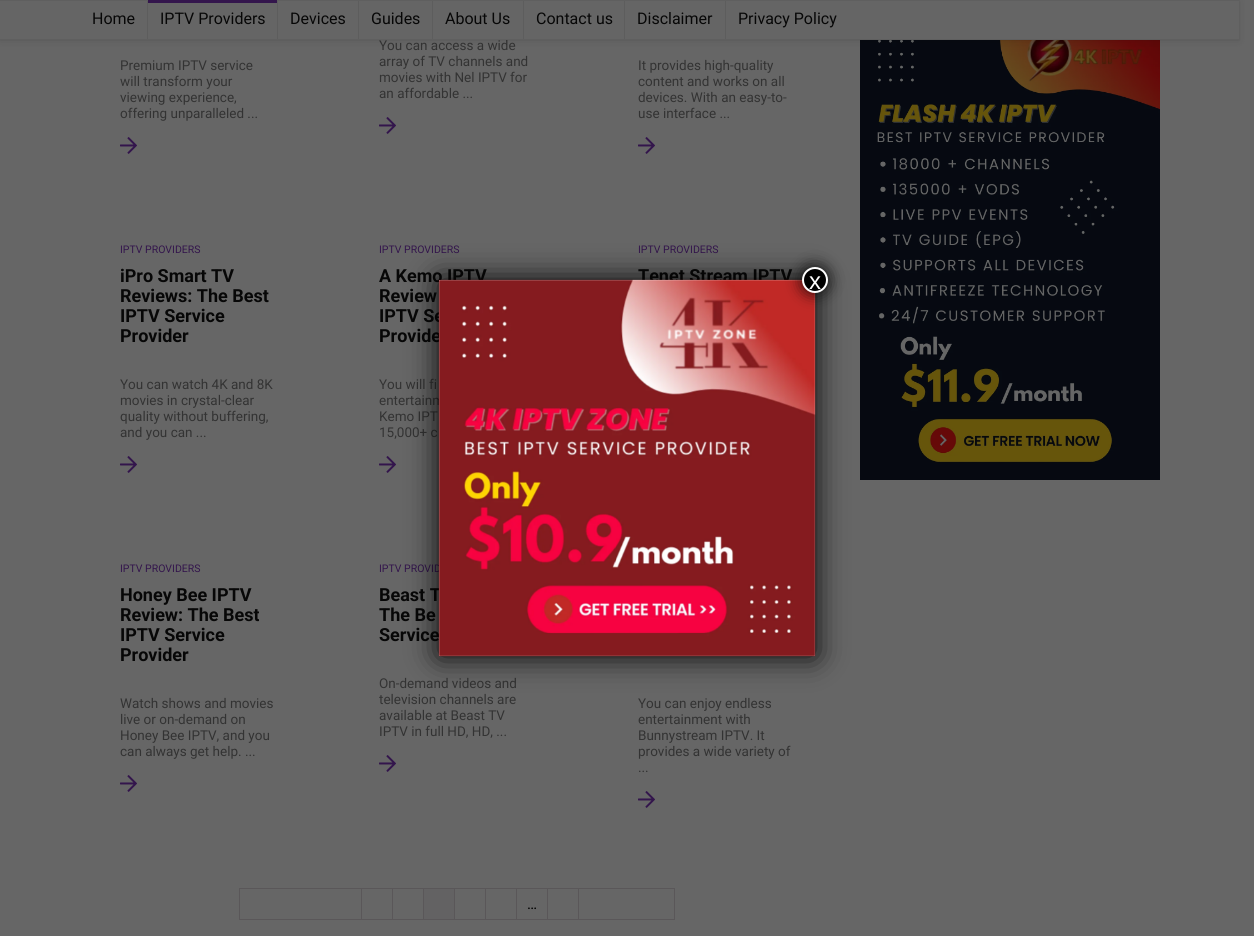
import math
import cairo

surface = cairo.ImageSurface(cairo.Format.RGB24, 1254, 936)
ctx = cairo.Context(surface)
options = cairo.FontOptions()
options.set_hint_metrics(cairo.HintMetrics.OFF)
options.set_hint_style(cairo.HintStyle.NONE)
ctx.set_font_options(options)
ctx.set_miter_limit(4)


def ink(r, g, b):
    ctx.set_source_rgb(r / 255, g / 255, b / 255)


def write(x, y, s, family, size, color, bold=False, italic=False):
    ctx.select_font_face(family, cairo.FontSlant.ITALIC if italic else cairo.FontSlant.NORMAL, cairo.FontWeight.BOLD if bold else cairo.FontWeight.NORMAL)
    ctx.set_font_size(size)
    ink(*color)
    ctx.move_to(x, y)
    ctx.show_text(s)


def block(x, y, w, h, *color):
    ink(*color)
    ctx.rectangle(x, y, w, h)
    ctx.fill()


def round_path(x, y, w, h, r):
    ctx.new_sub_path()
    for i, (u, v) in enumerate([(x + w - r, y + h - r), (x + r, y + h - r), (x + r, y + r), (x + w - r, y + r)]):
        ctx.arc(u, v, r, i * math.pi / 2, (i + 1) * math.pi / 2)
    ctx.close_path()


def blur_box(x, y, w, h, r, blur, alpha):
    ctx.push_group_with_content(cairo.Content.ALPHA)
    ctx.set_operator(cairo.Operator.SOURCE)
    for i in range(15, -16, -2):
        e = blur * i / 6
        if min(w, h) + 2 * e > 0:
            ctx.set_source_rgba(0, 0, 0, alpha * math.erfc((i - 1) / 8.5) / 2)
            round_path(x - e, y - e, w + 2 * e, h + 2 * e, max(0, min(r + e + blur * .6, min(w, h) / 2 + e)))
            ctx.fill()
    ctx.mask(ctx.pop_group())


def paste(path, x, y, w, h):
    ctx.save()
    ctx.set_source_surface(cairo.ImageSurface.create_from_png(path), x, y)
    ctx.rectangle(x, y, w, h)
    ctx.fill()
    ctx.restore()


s1 = dict(family="Roboto", size=13.5, color=(51, 51, 51))
s2 = dict(family="Roboto", size=16, color=(7, 7, 7))
s3 = dict(family="Roboto", size=10.5, color=(51, 21, 76))
s4 = dict(family="Roboto", size=18, color=(7, 7, 7), bold=True)
s5 = dict(family="Roboto", size=15, color=(0, 0, 0))
s6 = dict(family="Liberation Sans", size=24, color=(255, 255, 255))

ink(102, 102, 102)
ctx.paint()
write(379, 50, "You can access a wide", **s1)
paste("pic2.png", 860, 40, 300, 440)
ctx.rectangle(-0.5, -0.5, 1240, 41)
ctx.set_source_rgba(0, 0, 0, 0.03)
ctx.set_line_width(1)
ctx.stroke()
ink(0, 0, 0)
blur_box(0, 1, 1239, 40, 0, 4, 0.1)
block(0, 1, 1239, 38, 101, 101, 101)
block(0, 0, 1239, 1, 95, 95, 95)
block(0, 39, 1239, 1, 95, 95, 95)
block(147, 1, 1, 38, 93, 93, 93)
write(92, 24, "Home", **s2)
block(277, 1, 1, 38, 93, 93, 93)
block(148, 0, 129, 3, 51, 21, 76)
write(160, 24, "IPTV Providers", **s2)
block(358, 1, 1, 38, 93, 93, 93)
write(290, 24, "Devices", **s2)
block(432, 1, 1, 38, 93, 93, 93)
write(371, 24, "Guides", **s2)
block(523, 1, 1, 38, 93, 93, 93)
write(445, 24, "About Us", **s2)
block(624, 1, 1, 38, 93, 93, 93)
write(536, 24, "Contact us", **s2)
block(725, 1, 1, 38, 93, 93, 93)
write(637, 24, "Disclaimer", **s2)
write(738, 24, "Privacy Policy", **s2)
write(120, 70, "Premium IPTV service", **s1)
write(120, 86, "will transform your", **s1)
write(120, 102, "viewing experience,", **s1)
write(120, 118, "offering unparalleled ...", **s1)
paste("pic1.png", 120, 137, 17, 17)
write(379, 66, "array of TV channels and", **s1)
write(379, 82, "movies with Nel IPTV for", **s1)
write(379, 98, "an affordable ...", **s1)
paste("pic1.png", 379, 117, 17, 17)
write(638, 70, "It provides high-quality", **s1)
write(638, 86, "content and works on all", **s1)
write(638, 102, "devices. With an easy-to-", **s1)
write(638, 118, "use interface ...", **s1)
paste("pic1.png", 638, 137, 17, 17)
write(120, 253, "IPTV PROVIDERS", **s3)
write(120, 282, "iPro Smart TV", **s4)
write(120, 302, "Reviews: The Best", **s4)
write(120, 322, "IPTV Service", **s4)
write(120, 342, "Provider", **s4)
write(120, 389, "You can watch 4K and 8K", **s1)
write(120, 405, "movies in crystal-clear", **s1)
write(120, 421, "quality without buffering,", **s1)
write(120, 437, "and you can ...", **s1)
paste("pic1.png", 120, 456, 17, 17)
write(379, 253, "IPTV PROVIDERS", **s3)
write(379, 282, "A Kemo IPTV", **s4)
write(379, 302, "Review", **s4)
write(379, 322, "IPTV Se", **s4)
write(379, 342, "Provide", **s4)
write(379, 389, "You will fi", **s1)
write(379, 405, "entertainm", **s1)
write(379, 421, "Kemo IPT", **s1)
write(379, 437, "15,000+ c", **s1)
paste("pic1.png", 379, 456, 17, 17)
write(638, 253, "IPTV PROVIDERS", **s3)
write(638, 282, "Tenet Stream IPTV", **s4)
write(120, 572, "IPTV PROVIDERS", **s3)
write(120, 601, "Honey Bee IPTV", **s4)
write(120, 621, "Review: The Best", **s4)
write(120, 641, "IPTV Service", **s4)
write(120, 661, "Provider", **s4)
write(120, 708, "Watch shows and movies", **s1)
write(120, 724, "live or on-demand on", **s1)
write(120, 740, "Honey Bee IPTV, and you", **s1)
write(120, 756, "can always get help. ...", **s1)
paste("pic1.png", 120, 775, 17, 17)
write(379, 572, "IPTV PROVID", **s3)
write(379, 601, "Beast T", **s4)
write(379, 621, "The Be", **s4)
write(379, 641, "Service", **s4)
write(379, 688, "On-demand videos and", **s1)
write(379, 704, "television channels are", **s1)
write(379, 720, "available at Beast TV", **s1)
write(379, 736, "IPTV in full HD, HD, ...", **s1)
paste("pic1.png", 379, 755, 17, 17)
write(638, 708, "You can enjoy endless", **s1)
write(638, 724, "entertainment with", **s1)
write(638, 740, "Bunnystream IPTV. It", **s1)
write(638, 756, "provides a wide variety of", **s1)
write(638, 772, "...", **s1)
paste("pic1.png", 638, 791, 17, 17)
block(239, 888, 436, 1, 90, 87, 89)
block(239, 919, 436, 1, 90, 87, 89)
block(239, 888, 1, 32, 90, 87, 89)
block(361, 889, 1, 30, 90, 87, 89)
block(392, 889, 1, 30, 90, 87, 89)
block(423, 889, 1, 30, 90, 87, 89)
block(454, 889, 1, 30, 90, 87, 89)
block(424, 889, 30, 30, 99, 98, 99)
block(485, 889, 1, 30, 90, 87, 89)
block(516, 889, 1, 30, 90, 87, 89)
block(547, 889, 1, 30, 90, 87, 89)
write(527, 909, "…", **s5)
block(578, 889, 1, 30, 90, 87, 89)
block(674, 889, 1, 30, 90, 87, 89)
ink(2, 2, 2)
blur_box(439, 280, 376, 376, 0, 15, 1)
block(439, 280, 376, 376, 255, 255, 255)
paste("pic3.png", 438, 279, 378, 378)
ink(2, 2, 2)
blur_box(801, 266, 28, 28, 14, 7.5, 0.75)
ink(0, 0, 0)
ctx.arc(815, 280, 12, 0, 2 * math.pi)
ctx.fill_preserve()
ink(255, 255, 255)
ctx.set_line_width(2)
ctx.stroke()
write(809, 289, "x", **s6)
surface.write_to_png("screenshot.png")
